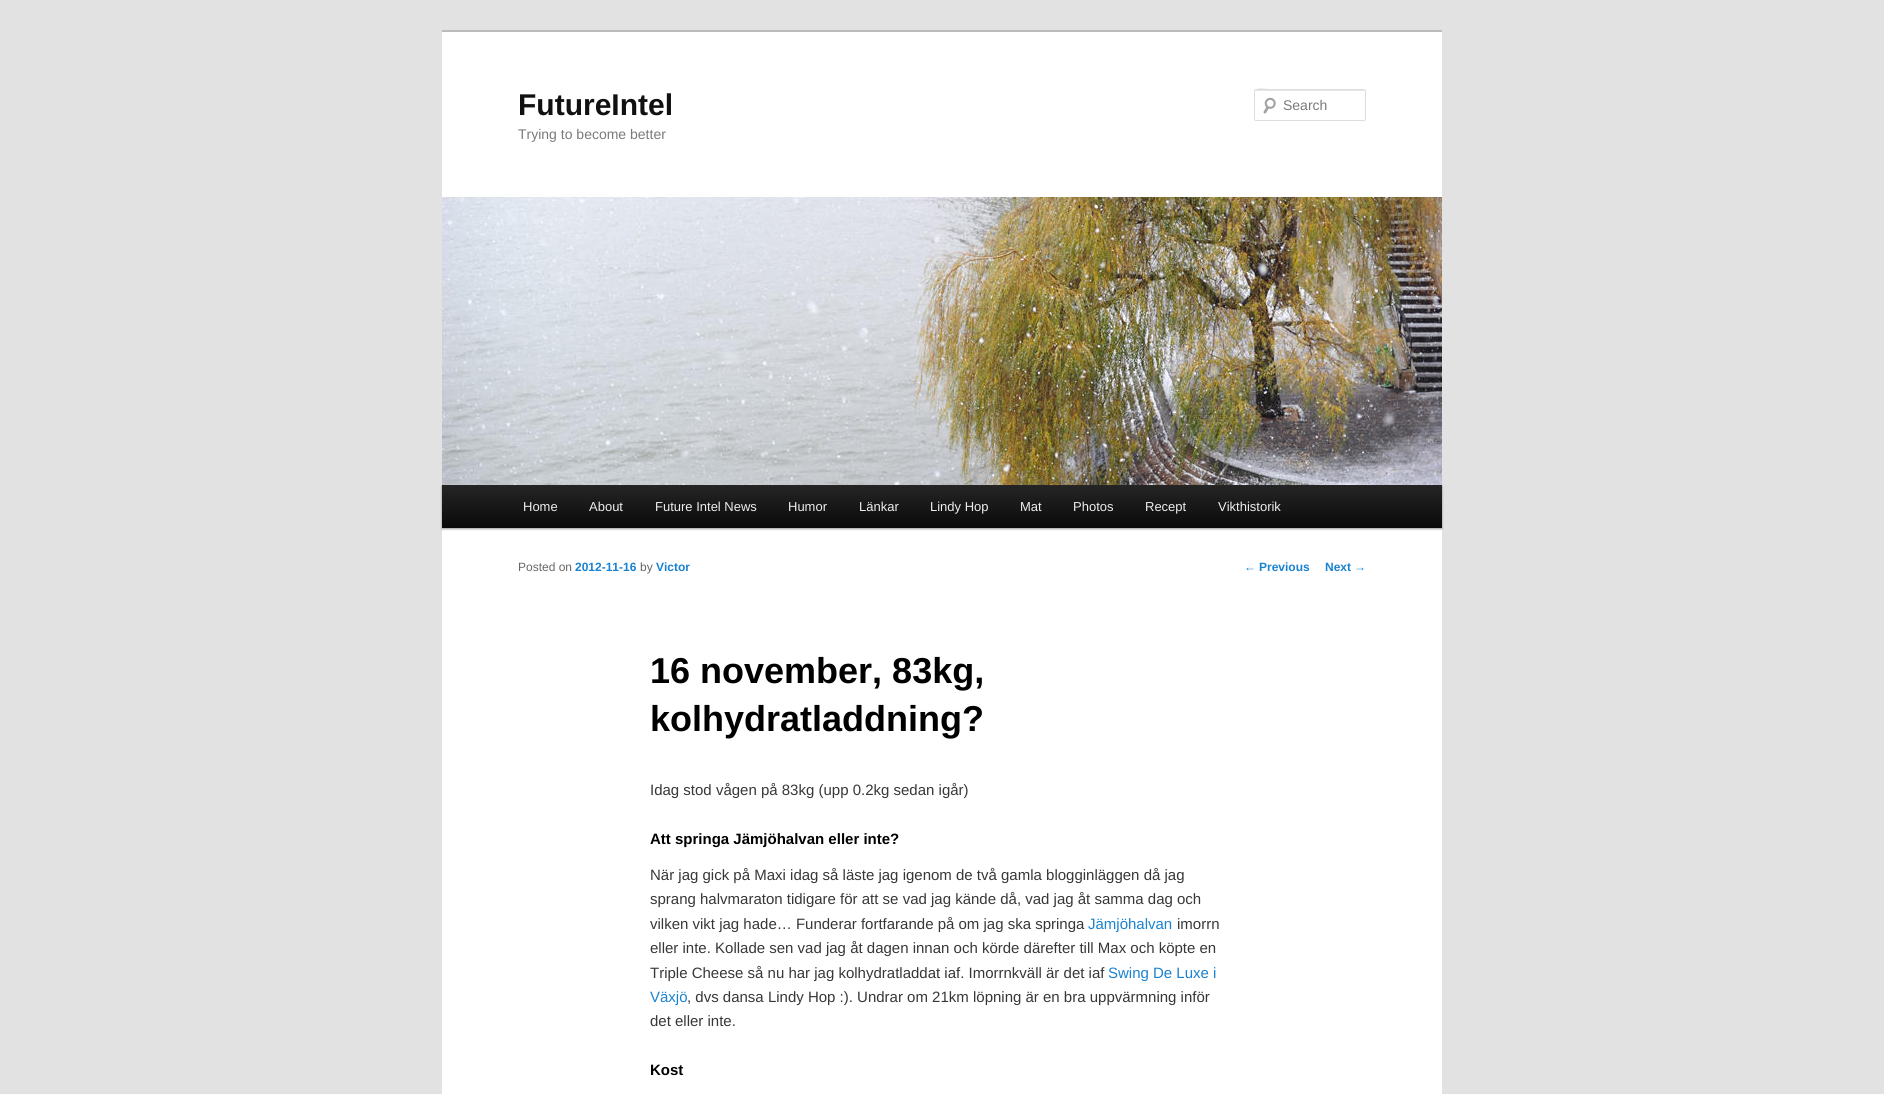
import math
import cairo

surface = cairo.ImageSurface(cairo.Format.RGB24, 1884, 1094)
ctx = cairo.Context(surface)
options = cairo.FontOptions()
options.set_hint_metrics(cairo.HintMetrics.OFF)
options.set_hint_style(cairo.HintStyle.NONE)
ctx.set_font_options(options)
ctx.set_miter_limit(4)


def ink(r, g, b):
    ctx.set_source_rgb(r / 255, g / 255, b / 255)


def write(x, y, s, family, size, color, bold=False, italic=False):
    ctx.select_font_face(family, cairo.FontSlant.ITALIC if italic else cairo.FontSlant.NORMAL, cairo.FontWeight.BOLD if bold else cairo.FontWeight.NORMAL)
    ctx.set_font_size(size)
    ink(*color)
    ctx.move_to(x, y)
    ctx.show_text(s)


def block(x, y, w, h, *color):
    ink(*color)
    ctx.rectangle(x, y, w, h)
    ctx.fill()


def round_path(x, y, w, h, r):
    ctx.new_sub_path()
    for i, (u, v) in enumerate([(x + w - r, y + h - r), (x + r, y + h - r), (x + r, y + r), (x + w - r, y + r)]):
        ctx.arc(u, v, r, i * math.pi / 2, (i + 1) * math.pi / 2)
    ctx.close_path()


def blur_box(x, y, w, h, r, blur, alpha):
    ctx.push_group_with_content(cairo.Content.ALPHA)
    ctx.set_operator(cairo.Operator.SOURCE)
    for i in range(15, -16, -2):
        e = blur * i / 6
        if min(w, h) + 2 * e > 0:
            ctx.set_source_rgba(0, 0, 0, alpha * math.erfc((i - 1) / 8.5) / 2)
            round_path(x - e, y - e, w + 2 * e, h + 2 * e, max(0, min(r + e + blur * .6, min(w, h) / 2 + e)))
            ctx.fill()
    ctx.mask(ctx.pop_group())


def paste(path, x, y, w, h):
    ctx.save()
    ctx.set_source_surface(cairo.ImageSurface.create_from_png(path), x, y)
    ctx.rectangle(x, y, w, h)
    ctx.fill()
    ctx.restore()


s1 = dict(family="Liberation Sans", size=30, color=(17, 17, 17), bold=True)
s2 = dict(family="Liberation Sans", size=14, color=(122, 122, 122))
s3 = dict(family="Liberation Sans", size=13, color=(238, 238, 238))
s4 = dict(family="Liberation Sans", size=12, color=(102, 102, 102))
s5 = dict(family="Liberation Sans", size=12, color=(25, 130, 209), bold=True)
s6 = dict(family="Liberation Sans", size=36, color=(0, 0, 0), bold=True)
s7 = dict(family="Liberation Sans", size=15, color=(55, 55, 55))
s8 = dict(family="Liberation Sans", size=15, color=(0, 0, 0), bold=True)
s9 = dict(family="Liberation Sans", size=15, color=(25, 130, 209))
s10 = dict(family="Liberation Sans", size=12, color=(25, 130, 209))

ink(226, 226, 226)
ctx.paint()
block(442, 32, 1000, 1062, 255, 255, 255)
block(442, 30, 1000, 2, 187, 187, 187)
write(518, 115, "FutureIntel", **s1)
write(518, 139, "Trying to become better", **s2)
paste("pic1.png", 1263, 97, 13, 17)
ink(230, 230, 230)
ctx.new_path()
ctx.move_to(1256, 91)
ctx.line_to(1365, 91)
ctx.line_to(1365, 92)
ctx.line_to(1364, 90)
ctx.line_to(1274, 90)
ctx.curve_to(1270, 90, 1255, 85, 1255, 92)
ctx.curve_to(1255, 91, 1255, 91, 1256, 91)
ctx.close_path()
ctx.fill()
round_path(1254.5, 89.5, 111, 31, 1.5)
ink(221, 221, 221)
ctx.set_line_width(1)
ctx.stroke()
write(1283, 110, "Search", **s2)
ink(0, 0, 0)
blur_box(442, 486, 1000, 43, 0, 1, 0.4)
paste("pic2.png", 442, 197, 1000, 288)
gradient = cairo.LinearGradient(942, 485, 942, 528)
gradient.add_color_stop_rgba(0, 0.145, 0.145, 0.145, 1)
gradient.add_color_stop_rgba(1, 0.039, 0.039, 0.039, 1)
ctx.set_source(gradient)
ctx.rectangle(442, 485, 1000, 43)
ctx.fill()
write(523, 511, "Home", **s3)
write(589, 511, "About", **s3)
write(655, 511, "Future Intel News", **s3)
write(788, 511, "Humor", **s3)
write(859, 511, "Länkar", **s3)
write(930, 511, "Lindy Hop", **s3)
write(1020, 511, "Mat", **s3)
write(1073, 511, "Photos", **s3)
write(1145, 511, "Recept", **s3)
write(1218, 511, "Vikthistorik", **s3)
write(518, 571, "Posted on", **s4)
write(575, 571, "2012-11-16", **s5)
write(640, 571, "by", **s4)
write(656, 571, "Victor", **s5)
write(650, 683, "16 november, 83kg,", **s6)
write(650, 731, "kolhydratladdning?", **s6)
write(650, 795, "Idag stod vågen på 83kg (upp 0.2kg sedan igår)", **s7)
write(650, 844, "Att springa Jämjöhalvan eller inte?", **s8)
write(650, 880, "När jag gick på Maxi idag så läste jag igenom de två gamla blogginläggen då jag", **s7)
write(650, 904, "sprang halvmaraton tidigare för att se vad jag kände då, vad jag åt samma dag och", **s7)
write(650, 929, "vilken vikt jag hade… Funderar fortfarande på om jag ska springa", **s7)
write(1088, 929, "Jämjöhalvan", **s9)
write(1177, 929, "imorrn", **s7)
write(650, 953, "eller inte. Kollade sen vad jag åt dagen innan och körde därefter till Max och köpte en", **s7)
write(650, 978, "Triple Cheese så nu har jag kolhydratladdat iaf. Imorrnkväll är det iaf", **s7)
write(1108, 978, "Swing De Luxe i", **s9)
write(650, 1002, "Växjö", **s9)
write(687, 1002, ", dvs dansa Lindy Hop :). Undrar om 21km löpning är en bra uppvärmning inför", **s7)
write(650, 1026, "det eller inte.", **s7)
write(650, 1075, "Kost", **s8)
write(1244, 571, "←", **s10)
write(1259, 571, "Previous", **s5)
write(1325, 571, "Next", **s5)
write(1354, 571, "→", **s10)
surface.write_to_png("screenshot.png")
